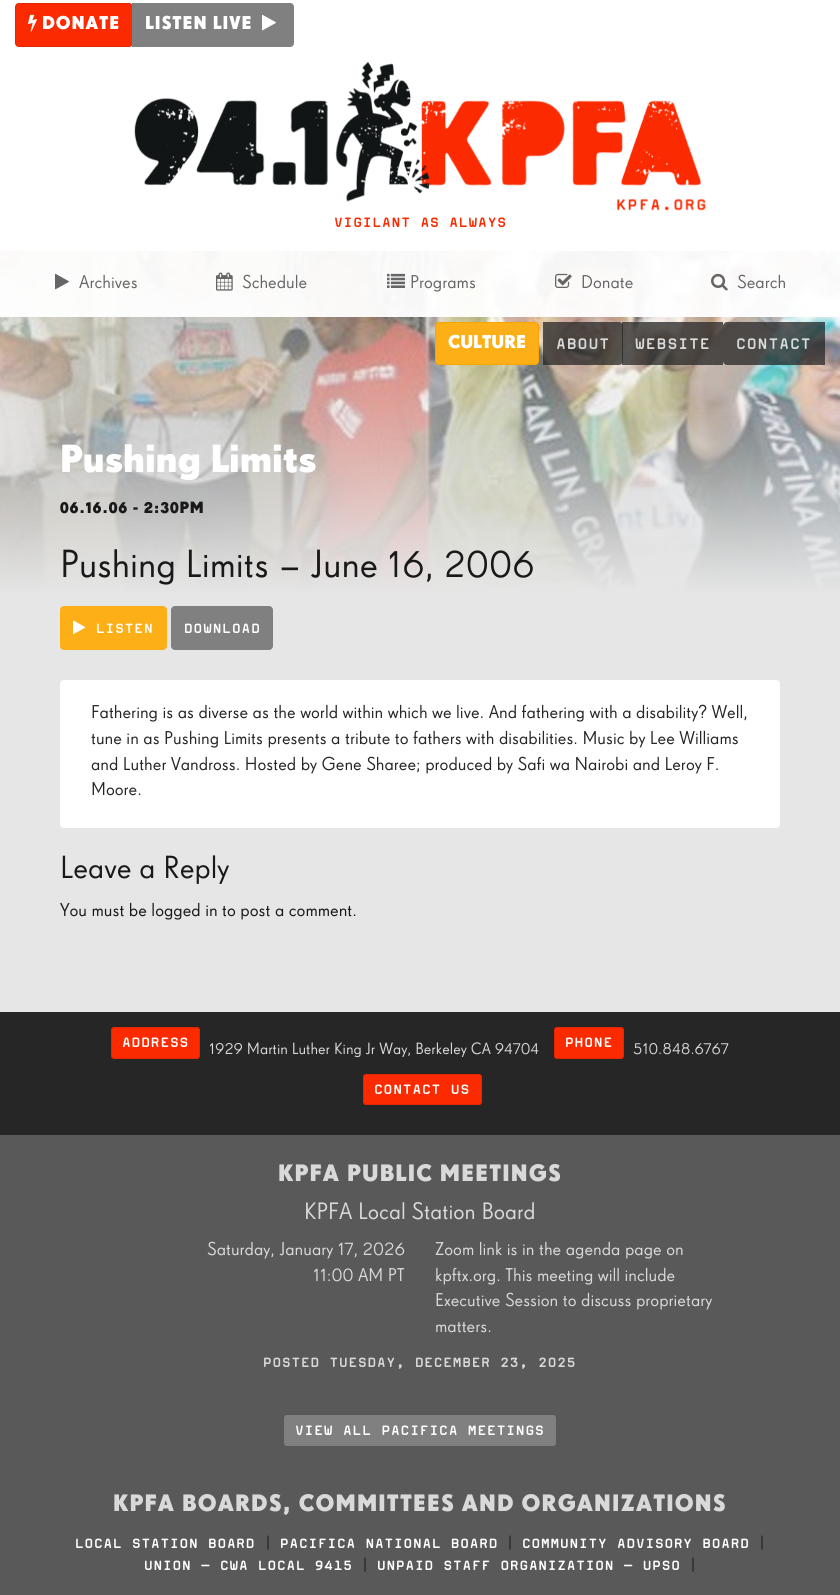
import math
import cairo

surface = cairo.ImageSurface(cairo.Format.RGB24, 840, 1595)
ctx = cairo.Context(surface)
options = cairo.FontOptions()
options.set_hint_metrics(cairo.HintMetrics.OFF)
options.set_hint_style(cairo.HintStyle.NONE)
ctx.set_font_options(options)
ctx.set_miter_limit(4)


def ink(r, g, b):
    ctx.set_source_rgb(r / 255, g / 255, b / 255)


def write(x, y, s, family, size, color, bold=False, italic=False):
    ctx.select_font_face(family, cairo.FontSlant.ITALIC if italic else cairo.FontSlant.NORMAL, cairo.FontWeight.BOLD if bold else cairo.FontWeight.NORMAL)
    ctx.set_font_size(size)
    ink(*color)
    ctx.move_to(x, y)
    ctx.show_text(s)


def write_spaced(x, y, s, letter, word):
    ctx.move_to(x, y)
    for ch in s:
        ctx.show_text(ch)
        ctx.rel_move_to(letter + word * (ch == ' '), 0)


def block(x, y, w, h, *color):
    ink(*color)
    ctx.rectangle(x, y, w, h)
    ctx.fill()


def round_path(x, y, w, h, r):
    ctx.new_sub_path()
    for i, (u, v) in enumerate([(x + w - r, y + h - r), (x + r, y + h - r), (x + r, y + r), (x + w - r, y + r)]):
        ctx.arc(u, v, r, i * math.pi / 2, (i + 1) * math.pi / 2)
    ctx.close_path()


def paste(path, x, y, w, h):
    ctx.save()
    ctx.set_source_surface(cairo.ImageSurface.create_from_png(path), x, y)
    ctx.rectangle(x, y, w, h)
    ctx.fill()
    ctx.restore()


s1 = dict(family="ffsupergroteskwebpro", size=18, color=(102, 102, 102))
s2 = dict(family="ffsupergroteskwebpro", size=18, color=(255, 255, 255), bold=True)
s3 = dict(family="ffsupergroteskwebpro", size=38, color=(255, 255, 255), bold=True)
s4 = dict(family="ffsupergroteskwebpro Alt", size=38, color=(25, 25, 25))
s5 = dict(family="ffsupergroteskwebpro", size=18, color=(38, 38, 38))
s6 = dict(family="ffsupergroteskwebpro", size=31, color=(25, 25, 25))
s7 = dict(family="ffsupergroteskwebpro", size=18, color=(25, 25, 25))
s8 = dict(family="ffsupergroteskwebpro Alt", size=15.8, color=(217, 217, 217))
s9 = dict(family="ffsupergroteskwebpro", size=23, color=(217, 217, 217))
s10 = dict(family="ffsupergroteskwebpro Alt", size=18, color=(217, 217, 217))
s11 = dict(family="ffsupergroteskwebpro", size=18, color=(217, 217, 217))
s12 = dict(family="ffsupergroteskwebpro", size=15.8, color=(25, 25, 25))

ink(230, 230, 230)
ctx.paint()
block(0, 0, 840, 251, 255, 255, 255)
ink(252, 42, 0)
round_path(15.5, 3.5, 117, 43, 3.5)
ctx.fill_preserve()
ink(227, 38, 0)
ctx.set_line_width(1)
ctx.stroke()
paste("pic1.png", 28, 14, 9, 18)
ctx.select_font_face("ffsupergroteskwebpro", cairo.FontSlant.NORMAL, cairo.FontWeight.BOLD)
ctx.set_font_size(18)
ink(255, 255, 255)
write_spaced(42, 29, "DONATE", 0.9, 0)
ink(128, 128, 128)
ctx.new_path()
ctx.move_to(132.5, 3.5)
ctx.line_to(290, 3.5)
ctx.curve_to(292, 3.5, 293.5, 5, 293.5, 7)
ctx.line_to(293.5, 43)
ctx.curve_to(293.5, 45, 292, 46.5, 290, 46.5)
ctx.line_to(132.5, 46.5)
ctx.close_path()
ctx.fill_preserve()
ctx.stroke()
ink(255, 255, 255)
write_spaced(145, 29, "LISTEN LIVE", 0.9, 0)
paste("pic2.png", 262, 14, 14, 17)
paste("pic3.png", 134, 61, 572, 150)
ctx.select_font_face("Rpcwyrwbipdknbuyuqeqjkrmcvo", cairo.FontSlant.NORMAL, cairo.FontWeight.BOLD)
ctx.set_font_size(16)
ink(252, 42, 0)
write_spaced(334, 227, "VIGILANT AS ALWAYS", 0.8, 0)
paste("pic4.png", 0, 251, 840, 342)
ctx.set_source_rgba(1, 1, 1, 0.95)
ctx.rectangle(0, 251, 840, 66)
ctx.fill()
paste("pic5.png", 55, 273, 14, 17)
write(79, 288, "Archives", **s1)
paste("pic6.png", 216, 272, 17, 19)
write(242, 288, "Schedule", **s1)
paste("pic7.png", 387, 273, 18, 15)
write(410, 288, "Programs", **s1)
paste("pic8.png", 555, 273, 17, 15)
write(581, 288, "Donate", **s1)
paste("pic9.png", 711, 273, 17, 18)
write(737, 288, "Search", **s1)
ink(252, 175, 23)
round_path(435.5, 322.5, 103, 42, 3.5)
ctx.fill_preserve()
ink(246, 165, 3)
ctx.stroke()
write(448, 348, "CULTURE", **s2)
ctx.set_source_rgba(0.149, 0.149, 0.149, 0.75)
ctx.rectangle(622, 322, 101, 43)
ctx.fill()
ctx.new_path()
ctx.move_to(543, 322)
ctx.line_to(619, 322)
ctx.curve_to(621, 322, 623, 324, 623, 326)
ctx.line_to(623, 361)
ctx.curve_to(623, 363, 621, 365, 619, 365)
ctx.line_to(543, 365)
ctx.close_path()
ctx.fill()
ctx.select_font_face("Rpcwyrwbipdknbuyuqeqjkrmcvo", cairo.FontSlant.NORMAL, cairo.FontWeight.BOLD)
ink(217, 217, 217)
write_spaced(556, 349, "ABOUT", 0.9, 0)
write_spaced(635, 349, "WEBSITE", 0.9, 0)
ctx.set_source_rgba(0.149, 0.149, 0.149, 0.75)
ctx.new_path()
ctx.move_to(727, 322)
ctx.line_to(825, 322)
ctx.line_to(825, 365)
ctx.line_to(727, 365)
ctx.curve_to(725, 365, 723, 363, 723, 361)
ctx.line_to(723, 326)
ctx.curve_to(723, 324, 725, 322, 727, 322)
ctx.close_path()
ctx.fill()
ink(217, 217, 217)
write_spaced(736, 349, "CONTACT", 0.9, 0)
write(60, 472, "Pushing Limits", **s3)
ctx.select_font_face("ffsupergroteskwebpro Alt", cairo.FontSlant.NORMAL, cairo.FontWeight.BOLD)
ctx.set_font_size(15.8)
ink(25, 25, 25)
write_spaced(60, 513, "06.16.06 - 2:30PM", 0.8, 0)
write(60, 577, "Pushing Limits – June 16, 2006", **s4)
ink(252, 175, 23)
round_path(60.5, 606.5, 106, 43, 3.5)
ctx.fill_preserve()
ctx.stroke()
paste("pic10.png", 73, 620, 13, 15)
ctx.select_font_face("Rpcwyrwbipdknbuyuqeqjkrmcvo", cairo.FontSlant.NORMAL, cairo.FontWeight.BOLD)
ctx.set_font_size(15.8)
ink(255, 255, 255)
write_spaced(96, 633, "LISTEN", 0.9, 0)
ink(128, 128, 128)
round_path(171.5, 606.5, 101, 43, 3.5)
ctx.fill_preserve()
ctx.stroke()
ink(255, 255, 255)
write_spaced(184, 633, "DOWNLOAD", 0.9, 0)
round_path(60, 680, 720, 148, 4)
ctx.fill()
write(91, 718, "Fathering is as diverse as the world within which we live. And fathering with a disability? Well,", **s5)
write(91, 744, "tune in as Pushing Limits presents a tribute to fathers with disabilities. Music by Lee Williams", **s5)
write(91, 770, "and Luther Vandross. Hosted by Gene Sharee; produced by Safi wa Nairobi and Leroy F.", **s5)
write(91, 795, "Moore.", **s5)
write(60, 878, "Leave a Reply", **s6)
write(60, 916, "You must be logged in to post a comment.", **s7)
block(0, 1012, 840, 123, 38, 38, 38)
ink(252, 42, 0)
round_path(111.5, 1027.5, 88, 31, 2.5)
ctx.fill_preserve()
ink(227, 38, 0)
ctx.stroke()
ctx.select_font_face("Rpcwyrwbipdknbuyuqeqjkrmcvo", cairo.FontSlant.NORMAL, cairo.FontWeight.BOLD)
ctx.set_font_size(16)
ink(255, 255, 255)
write_spaced(122, 1047, "ADDRESS", 0.8, 0)
write(209, 1054, "1929 Martin Luther King Jr Way, Berkeley CA 94704", **s8)
ink(252, 42, 0)
round_path(554.5, 1027.5, 69, 31, 2.5)
ctx.fill_preserve()
ink(227, 38, 0)
ctx.stroke()
ctx.select_font_face("Rpcwyrwbipdknbuyuqeqjkrmcvo", cairo.FontSlant.NORMAL, cairo.FontWeight.BOLD)
ctx.set_font_size(16)
ink(255, 255, 255)
write_spaced(565, 1047, "PHONE", 0.8, 0)
write(633, 1054, "510.848.6767", **s8)
ink(252, 42, 0)
round_path(363.5, 1074.5, 118, 30, 2.5)
ctx.fill_preserve()
ink(227, 38, 0)
ctx.stroke()
ctx.select_font_face("Rpcwyrwbipdknbuyuqeqjkrmcvo", cairo.FontSlant.NORMAL, cairo.FontWeight.BOLD)
ctx.set_font_size(16)
ink(255, 255, 255)
write_spaced(374, 1094, "CONTACT US", 0.8, 0)
block(0, 1135, 840, 460, 89, 89, 89)
ctx.select_font_face("ffsupergroteskwebpro", cairo.FontSlant.NORMAL, cairo.FontWeight.BOLD)
ctx.set_font_size(23)
ink(217, 217, 217)
write_spaced(278, 1181, "KPFA PUBLIC MEETINGS", 1.15, 0)
write(304, 1219, "KPFA Local Station Board", **s9)
write(207, 1255, "Saturday, January 17, 2026", **s10)
write(313, 1281, "11:00 AM PT", **s10)
write(435, 1255, "Zoom link is in the agenda page on", **s11)
write(435, 1281, "kpftx.org. This meeting will include", **s11)
write(435, 1306, "Executive Session to discuss proprietary", **s11)
write(435, 1332, "matters.", **s11)
ctx.select_font_face("Rpcwyrwbipdknbuyuqeqjkrmcvo", cairo.FontSlant.NORMAL, cairo.FontWeight.BOLD)
ctx.set_font_size(15.8)
write_spaced(263, 1367, "POSTED TUESDAY, DECEMBER 23, 2025", 0.8, 0)
ink(128, 128, 128)
round_path(284.5, 1415.5, 271, 30, 2.5)
ctx.fill_preserve()
ctx.stroke()
ctx.set_font_size(16)
ink(255, 255, 255)
write_spaced(295, 1435, "VIEW ALL PACIFICA MEETINGS", 0.8, 0)
ctx.select_font_face("ffsupergroteskwebpro", cairo.FontSlant.NORMAL, cairo.FontWeight.BOLD)
ctx.set_font_size(23)
ink(217, 217, 217)
write_spaced(113, 1511, "KPFA BOARDS, COMMITTEES AND ORGANIZATIONS", 1.15, 0)
ctx.select_font_face("Rpcwyrwbipdknbuyuqeqjkrmcvo", cairo.FontSlant.NORMAL, cairo.FontWeight.BOLD)
ctx.set_font_size(15.8)
ink(255, 255, 255)
write_spaced(75, 1548, "LOCAL STATION BOARD", 0.8, 0)
write(265, 1548, "|", **s12)
ctx.select_font_face("Rpcwyrwbipdknbuyuqeqjkrmcvo", cairo.FontSlant.NORMAL, cairo.FontWeight.BOLD)
ink(255, 255, 255)
write_spaced(280, 1548, "PACIFICA NATIONAL BOARD", 0.8, 0)
write(507, 1548, "|", **s12)
ctx.select_font_face("Rpcwyrwbipdknbuyuqeqjkrmcvo", cairo.FontSlant.NORMAL, cairo.FontWeight.BOLD)
ink(255, 255, 255)
write_spaced(522, 1548, "COMMUNITY ADVISORY BOARD", 0.8, 0)
write(759, 1548, "|", **s12)
ctx.select_font_face("Rpcwyrwbipdknbuyuqeqjkrmcvo", cairo.FontSlant.NORMAL, cairo.FontWeight.BOLD)
ink(255, 255, 255)
write_spaced(144, 1570, "UNION - CWA LOCAL 9415", 0.8, 0)
write(362, 1570, "|", **s12)
ctx.select_font_face("Rpcwyrwbipdknbuyuqeqjkrmcvo", cairo.FontSlant.NORMAL, cairo.FontWeight.BOLD)
ink(255, 255, 255)
write_spaced(377, 1570, "UNPAID STAFF ORGANIZATION - UPSO", 0.8, 0)
write(690, 1570, "|", **s12)
surface.write_to_png("screenshot.png")
